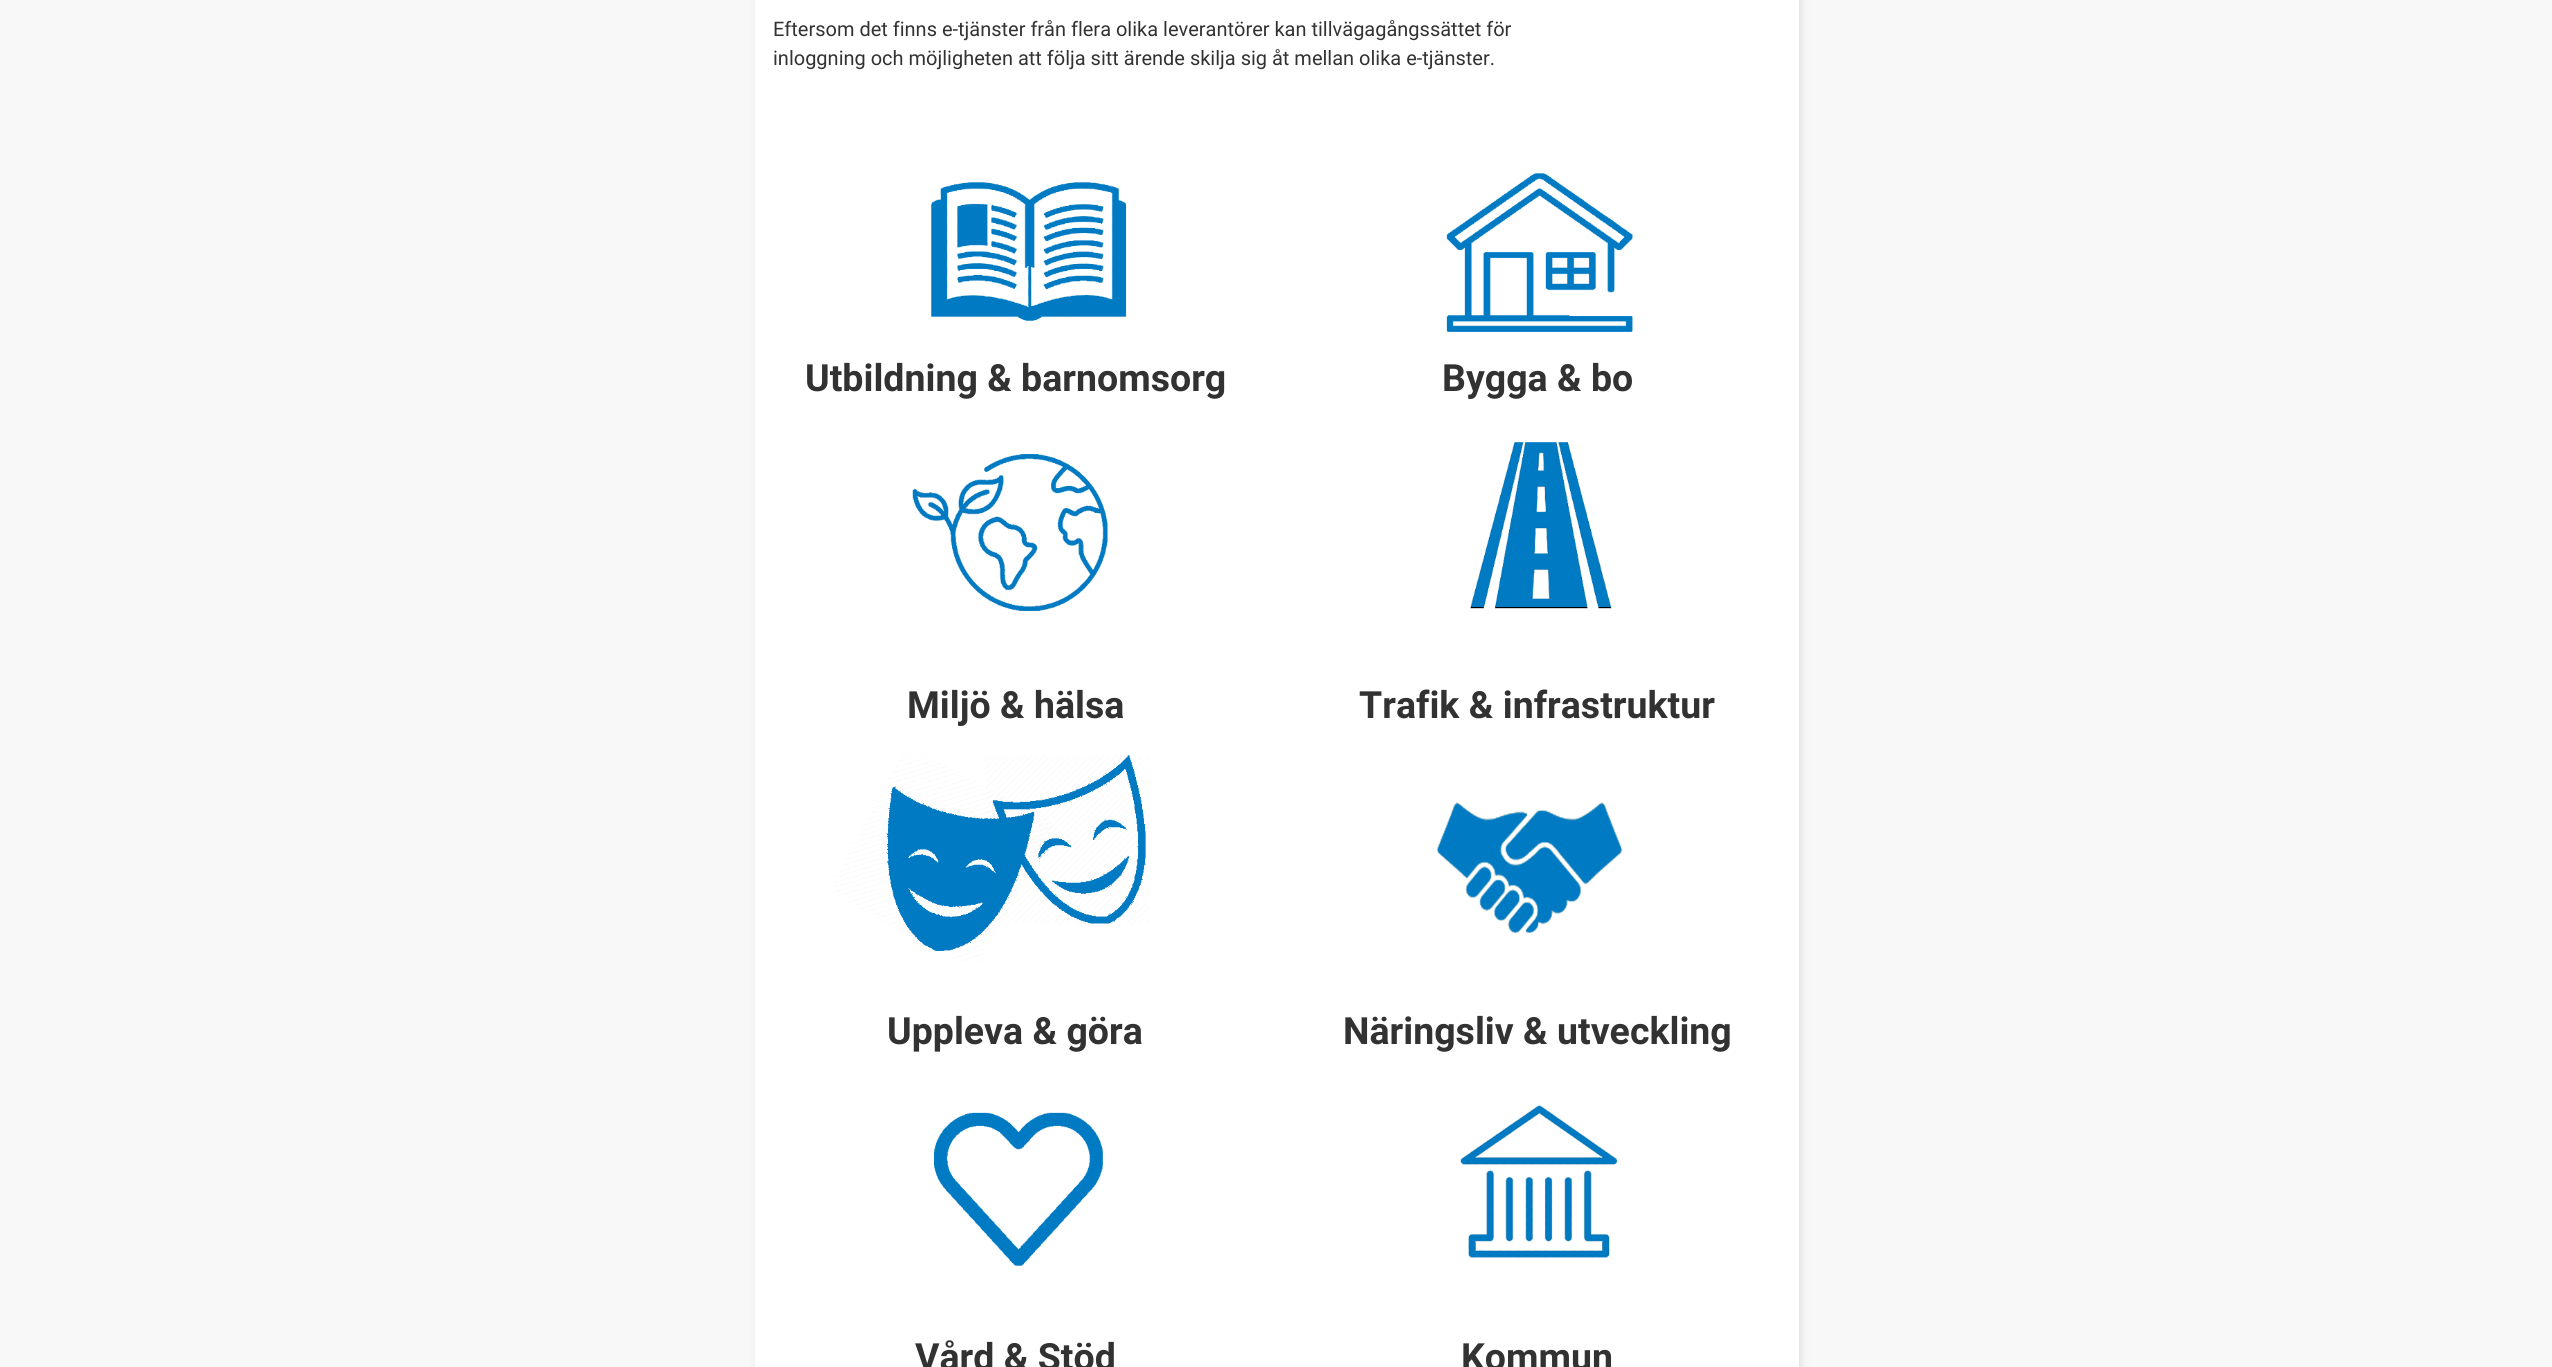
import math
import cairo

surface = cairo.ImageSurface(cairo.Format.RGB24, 2552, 1367)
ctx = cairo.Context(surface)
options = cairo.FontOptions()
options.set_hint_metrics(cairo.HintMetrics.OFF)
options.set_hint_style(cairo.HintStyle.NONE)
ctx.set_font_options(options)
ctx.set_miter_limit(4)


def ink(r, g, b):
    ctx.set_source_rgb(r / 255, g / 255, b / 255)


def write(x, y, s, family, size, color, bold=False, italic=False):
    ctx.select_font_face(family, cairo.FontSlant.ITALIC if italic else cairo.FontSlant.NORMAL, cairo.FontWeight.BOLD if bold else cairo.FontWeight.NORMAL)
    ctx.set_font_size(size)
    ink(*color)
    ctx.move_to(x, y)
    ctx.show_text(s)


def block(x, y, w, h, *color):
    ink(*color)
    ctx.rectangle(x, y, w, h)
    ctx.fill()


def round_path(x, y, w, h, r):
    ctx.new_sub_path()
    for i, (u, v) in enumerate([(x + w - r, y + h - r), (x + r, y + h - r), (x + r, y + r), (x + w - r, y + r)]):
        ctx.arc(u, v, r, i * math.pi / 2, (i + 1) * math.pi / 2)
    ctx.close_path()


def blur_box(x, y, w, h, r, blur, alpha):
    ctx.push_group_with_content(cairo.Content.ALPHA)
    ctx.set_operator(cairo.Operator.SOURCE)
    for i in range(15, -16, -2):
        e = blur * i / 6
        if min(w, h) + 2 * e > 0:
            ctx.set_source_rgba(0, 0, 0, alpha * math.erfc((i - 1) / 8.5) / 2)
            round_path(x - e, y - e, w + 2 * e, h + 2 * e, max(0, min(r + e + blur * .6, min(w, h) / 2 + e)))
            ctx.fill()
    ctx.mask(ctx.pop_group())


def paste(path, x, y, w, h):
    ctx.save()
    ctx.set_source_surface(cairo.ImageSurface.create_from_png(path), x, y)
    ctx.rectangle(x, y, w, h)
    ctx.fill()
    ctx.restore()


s1 = dict(family="Roboto", size=20, color=(51, 50, 50))
s2 = dict(family="Roboto", size=37.5, color=(51, 50, 50), bold=True)

ink(248, 248, 248)
ctx.paint()
ink(0, 0, 0)
blur_box(758, -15, 1043, 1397, 0, 5, 0.1)
block(755, 0, 1044, 1367, 255, 255, 255)
write(773, 36, "Eftersom det finns e-tjänster från flera olika leverantörer kan tillvägagångssättet för", **s1)
write(773, 65, "inloggning och möjligheten att följa sitt ärende skilja sig åt mellan olika e-tjänster.", **s1)
paste("pic1.png", 931, 182, 196, 139)
write(805, 391, "Utbildning & barnomsorg", **s2)
paste("pic2.png", 1446, 173, 187, 159)
write(1442, 391, "Bygga & bo", **s2)
paste("pic3.png", 912, 454, 196, 157)
write(907, 718, "Miljö & hälsa", **s2)
paste("pic4.png", 1470, 442, 142, 167)
write(1359, 718, "Trafik & infrastruktur", **s2)
paste("pic5.png", 833, 755, 316, 206)
write(887, 1044, "Uppleva & göra", **s2)
paste("pic6.png", 1395, 802, 228, 131)
write(1343, 1044, "Näringsliv & utveckling", **s2)
paste("pic7.png", 934, 1112, 169, 154)
write(915, 1370, "Vård & Stöd", **s2)
paste("pic8.png", 1460, 1105, 158, 153)
write(1461, 1370, "Kommun", **s2)
surface.write_to_png("screenshot.png")
